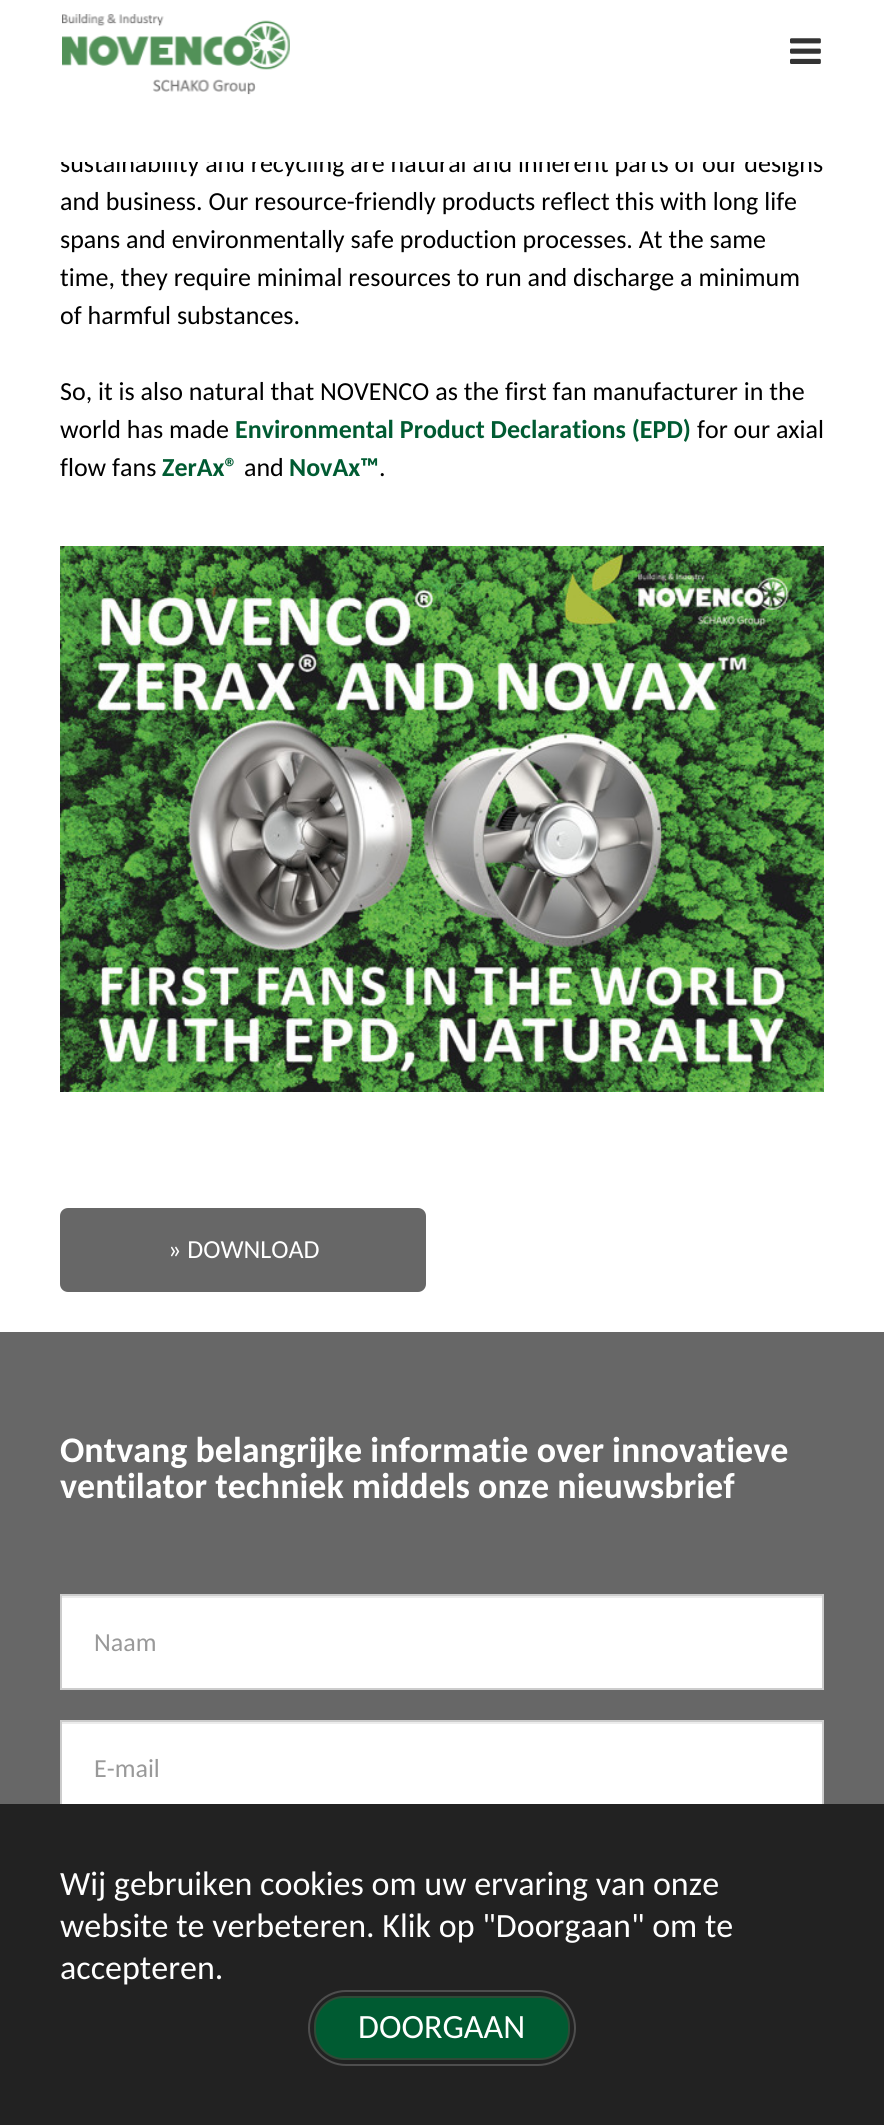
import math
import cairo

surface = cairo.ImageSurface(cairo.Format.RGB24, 884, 2125)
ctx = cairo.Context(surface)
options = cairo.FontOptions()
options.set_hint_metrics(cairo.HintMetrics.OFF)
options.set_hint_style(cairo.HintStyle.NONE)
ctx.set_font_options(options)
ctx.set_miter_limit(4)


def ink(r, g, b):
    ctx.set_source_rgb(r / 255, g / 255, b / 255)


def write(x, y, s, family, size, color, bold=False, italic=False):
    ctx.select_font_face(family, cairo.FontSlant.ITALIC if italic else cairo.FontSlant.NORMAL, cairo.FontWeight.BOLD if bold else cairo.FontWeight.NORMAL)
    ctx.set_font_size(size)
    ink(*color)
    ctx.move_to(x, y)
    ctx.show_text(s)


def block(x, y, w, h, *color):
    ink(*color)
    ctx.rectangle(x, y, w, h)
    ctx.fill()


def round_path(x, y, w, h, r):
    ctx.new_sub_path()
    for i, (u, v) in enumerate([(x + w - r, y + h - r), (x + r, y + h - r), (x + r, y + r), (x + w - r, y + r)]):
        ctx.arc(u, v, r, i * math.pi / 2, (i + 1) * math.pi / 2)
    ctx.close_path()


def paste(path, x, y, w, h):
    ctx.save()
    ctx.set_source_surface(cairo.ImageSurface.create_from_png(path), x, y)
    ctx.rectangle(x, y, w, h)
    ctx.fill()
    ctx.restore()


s1 = dict(family="Carlito", size=26, color=(0, 0, 0))
s2 = dict(family="Carlito", size=26, color=(0, 91, 50), bold=True)
s3 = dict(family="Carlito", size=26, color=(255, 255, 255))
s4 = dict(family="Carlito", size=36, color=(255, 255, 255), bold=True)
s5 = dict(family="Carlito", size=26, color=(153, 153, 153))
s6 = dict(family="Carlito", size=34, color=(255, 255, 255))

ink(255, 255, 255)
ctx.paint()
write(60, 172, "sustainability and recycling are natural and inherent parts of our designs", **s1)
block(61, 153, 762, 9, 255, 255, 255)
paste("pic1.png", 62, 14, 228, 81)
paste("pic2.png", 790, 38, 31, 26)
write(60, 210, "and business. Our resource-friendly products reflect this with long life", **s1)
write(60, 248, "spans and environmentally safe production processes. At the same", **s1)
write(60, 286, "time, they require minimal resources to run and discharge a minimum", **s1)
write(60, 324, "of harmful substances.", **s1)
write(60, 400, "So, it is also natural that NOVENCO as the first fan manufacturer in the", **s1)
write(60, 438, "world has made", **s1)
write(235, 438, "Environmental Product Declarations (EPD)", **s2)
write(697, 438, "for our axial", **s1)
write(60, 476, "flow fans", **s1)
write(162, 476, "ZerAx®", **s2)
write(244, 476, "and", **s1)
write(289, 476, "NovAx™", **s2)
write(379, 476, ".", **s1)
paste("pic3.png", 60, 546, 764, 546)
ink(103, 103, 103)
round_path(60, 1208, 366, 84, 8)
ctx.fill()
write(168, 1258, "» DOWNLOAD", **s3)
block(0, 1332, 884, 472, 103, 103, 103)
write(60, 1462, "Ontvang belangrijke informatie over innovatieve", **s4)
write(60, 1498, "ventilator techniek middels onze nieuwsbrief", **s4)
block(62, 1598, 760, 90, 255, 255, 255)
block(62, 1596, 760, 2, 236, 236, 236)
ctx.rectangle(61, 1595, 762, 94)
ink(204, 204, 204)
ctx.stroke()
write(94, 1651, "Naam", **s5)
block(62, 1724, 760, 80, 255, 255, 255)
block(62, 1722, 760, 2, 236, 236, 236)
ctx.rectangle(61, 1721, 762, 94)
ink(204, 204, 204)
ctx.stroke()
write(94, 1777, "E-mail", **s5)
block(0, 1804, 884, 321, 34, 34, 34)
write(60, 1895, "Wij gebruiken cookies om uw ervaring van onze", **s6)
write(60, 1937, "website te verbeteren. Klik op \"Doorgaan\" om te", **s6)
write(60, 1979, "accepteren.", **s6)
round_path(309, 1991, 266, 74, 37)
ink(78, 78, 78)
ctx.stroke()
ink(0, 91, 50)
round_path(315, 1997, 254, 62, 29)
ctx.fill_preserve()
ink(46, 74, 55)
ctx.stroke()
write(358, 2038, "DOORGAAN", **s6)
surface.write_to_png("screenshot.png")
